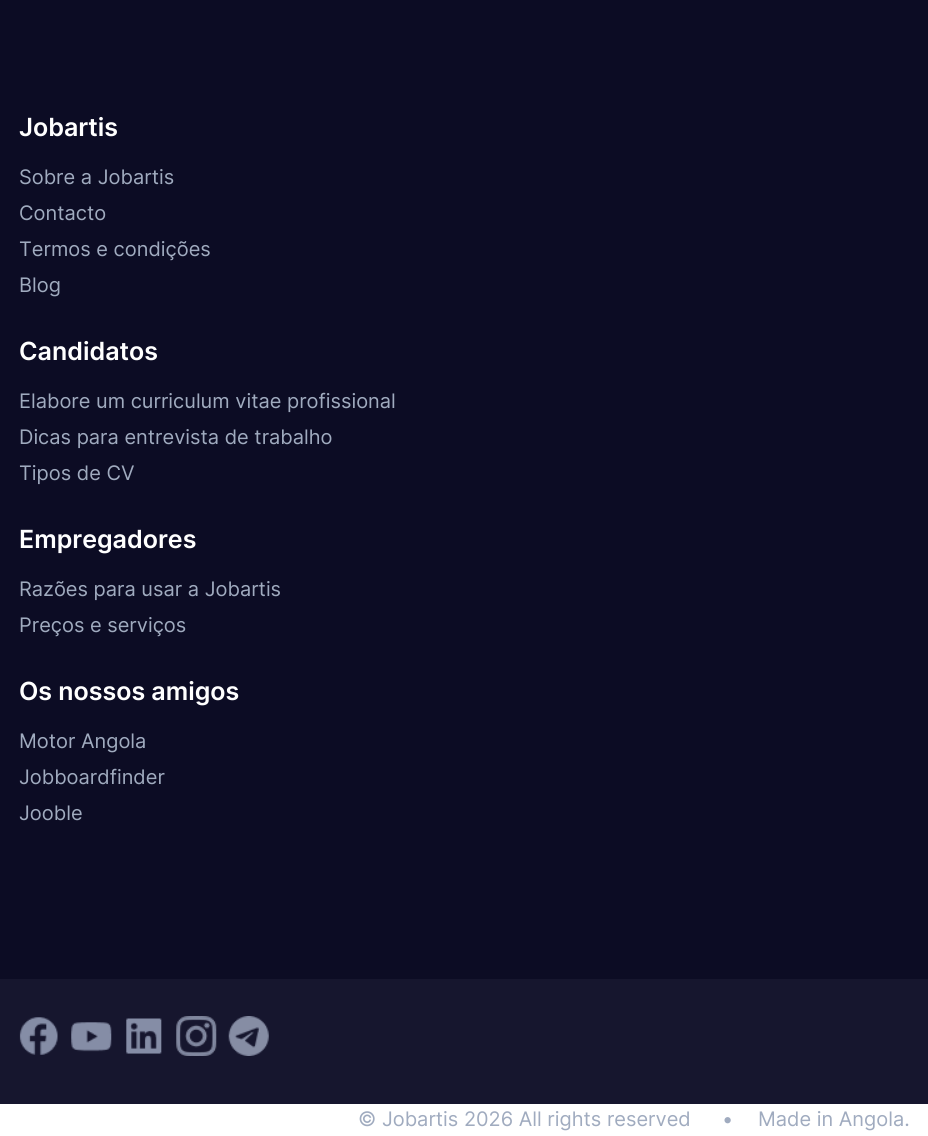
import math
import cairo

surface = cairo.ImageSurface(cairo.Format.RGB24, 928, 1136)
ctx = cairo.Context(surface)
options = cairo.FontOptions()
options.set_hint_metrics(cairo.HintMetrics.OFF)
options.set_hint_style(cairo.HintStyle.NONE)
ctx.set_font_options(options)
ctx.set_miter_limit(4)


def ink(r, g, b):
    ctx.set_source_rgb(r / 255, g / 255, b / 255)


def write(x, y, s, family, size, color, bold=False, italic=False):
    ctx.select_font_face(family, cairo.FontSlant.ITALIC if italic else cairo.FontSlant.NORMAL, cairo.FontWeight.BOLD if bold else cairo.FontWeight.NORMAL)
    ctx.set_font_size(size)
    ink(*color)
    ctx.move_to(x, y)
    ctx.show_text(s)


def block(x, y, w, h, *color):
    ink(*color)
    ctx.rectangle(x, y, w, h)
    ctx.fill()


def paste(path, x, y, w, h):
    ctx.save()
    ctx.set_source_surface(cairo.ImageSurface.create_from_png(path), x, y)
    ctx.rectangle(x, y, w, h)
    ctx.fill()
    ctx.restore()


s1 = dict(family="Inter SemiBold", size=25, color=(255, 255, 255))
s2 = dict(family="Inter", size=20, color=(160, 171, 191))

ink(255, 255, 255)
ctx.paint()
block(0, 0, 928, 979, 12, 12, 36)
write(19, 136, "Jobartis", **s1)
write(19, 184, "Sobre a Jobartis", **s2)
write(19, 220, "Contacto", **s2)
write(19, 256, "Termos e condições", **s2)
write(19, 292, "Blog", **s2)
write(19, 360, "Candidatos", **s1)
write(19, 408, "Elabore um curriculum vitae profissional", **s2)
write(19, 444, "Dicas para entrevista de trabalho", **s2)
write(19, 480, "Tipos de CV", **s2)
write(19, 548, "Empregadores", **s1)
write(19, 596, "Razões para usar a Jobartis", **s2)
write(19, 632, "Preços e serviços", **s2)
write(19, 700, "Os nossos amigos", **s1)
write(19, 748, "Motor Angola", **s2)
write(19, 784, "Jobboardfinder", **s2)
write(19, 820, "Jooble", **s2)
block(0, 979, 928, 125, 22, 22, 46)
paste("pic1.png", 19, 1017, 39, 38)
paste("pic2.png", 71, 1022, 41, 30)
paste("pic3.png", 126, 1018, 36, 36)
paste("pic4.png", 176, 1016, 41, 40)
paste("pic5.png", 228, 1016, 41, 40)
write(358, 1126, "© Jobartis 2026 All rights reserved", **s2)
write(722, 1126, "•", **s2)
write(758, 1126, "Made in Angola.", **s2)
surface.write_to_png("screenshot.png")
